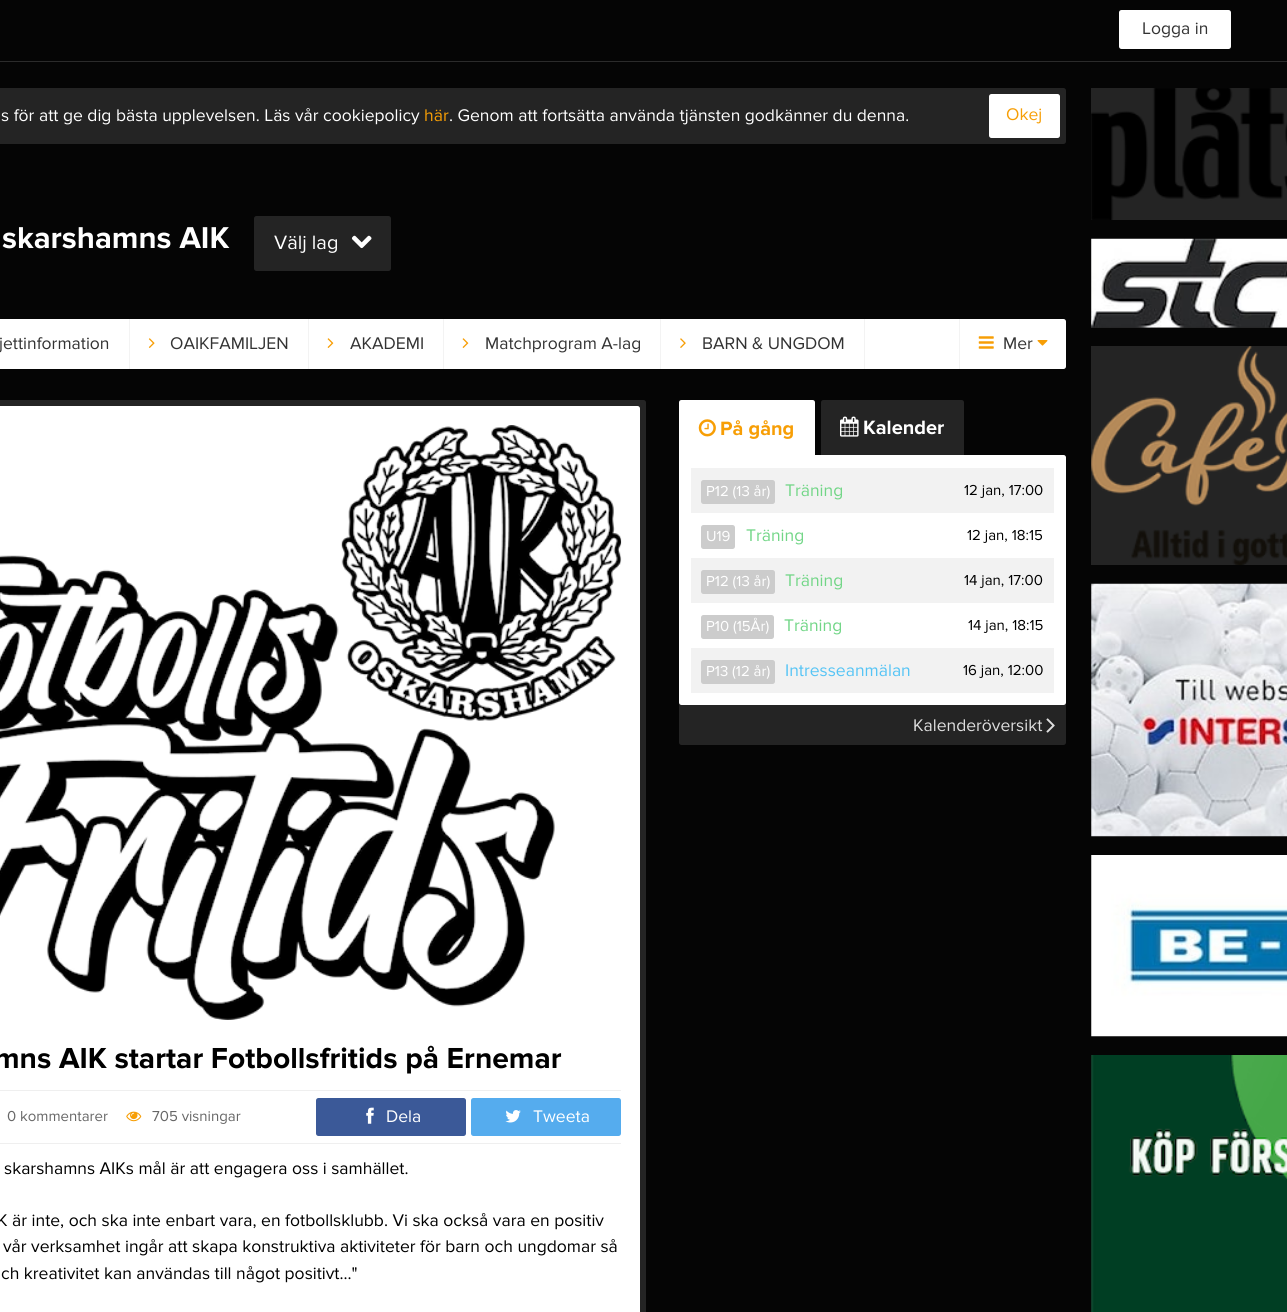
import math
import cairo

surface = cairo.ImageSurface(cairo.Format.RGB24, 1287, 1312)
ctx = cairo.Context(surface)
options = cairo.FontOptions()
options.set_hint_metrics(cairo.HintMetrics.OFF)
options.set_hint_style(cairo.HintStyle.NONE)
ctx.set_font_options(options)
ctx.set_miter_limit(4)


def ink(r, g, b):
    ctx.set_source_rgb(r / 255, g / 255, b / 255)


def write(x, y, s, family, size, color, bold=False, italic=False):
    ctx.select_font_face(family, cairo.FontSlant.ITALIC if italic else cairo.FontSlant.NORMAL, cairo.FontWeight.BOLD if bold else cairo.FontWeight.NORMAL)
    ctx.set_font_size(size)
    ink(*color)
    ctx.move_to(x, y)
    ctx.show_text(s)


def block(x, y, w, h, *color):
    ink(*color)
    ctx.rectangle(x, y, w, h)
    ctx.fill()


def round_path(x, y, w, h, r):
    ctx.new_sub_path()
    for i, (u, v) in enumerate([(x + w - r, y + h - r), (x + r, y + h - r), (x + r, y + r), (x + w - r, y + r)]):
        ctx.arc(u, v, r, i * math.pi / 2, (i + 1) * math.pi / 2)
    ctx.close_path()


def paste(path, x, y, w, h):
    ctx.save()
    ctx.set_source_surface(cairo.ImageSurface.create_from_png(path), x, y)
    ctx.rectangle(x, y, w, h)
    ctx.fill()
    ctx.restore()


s1 = dict(family="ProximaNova", size=17.5, color=(51, 51, 51))
s2 = dict(family="ProximaNova", size=17.5, color=(255, 255, 255))
s3 = dict(family="ProximaNova", size=17.5, color=(247, 158, 5))
s4 = dict(family="ProximaNova", size=31.25, color=(255, 255, 255), bold=True)
s5 = dict(family="ProximaNova", size=20, color=(255, 255, 255))
s6 = dict(family="ProximaNova", size=20, color=(247, 158, 5), bold=True)
s7 = dict(family="ProximaNova", size=20, color=(255, 255, 255), bold=True)
s8 = dict(family="ProximaNova", size=15, color=(255, 255, 255))
s9 = dict(family="ProximaNova", size=17.5, color=(114, 214, 135))
s10 = dict(family="ProximaNova", size=15, color=(0, 0, 0))
s11 = dict(family="ProximaNova", size=17.5, color=(85, 196, 245))
s12 = dict(family="ProximaNova", size=17.5, color=(222, 222, 222))
s13 = dict(family="ProximaNova", size=30, color=(0, 0, 0), bold=True)
s14 = dict(family="ProximaNova", size=15, color=(102, 102, 102))
s15 = dict(family="ProximaNova", size=17.5, color=(0, 0, 0))

ink(5, 5, 5)
ctx.paint()
block(0, 61, 1287, 1, 43, 43, 43)
ink(255, 255, 255)
round_path(1119, 10, 112, 39, 2.5)
ctx.fill()
write(1142, 34, "Logga in", **s1)
ink(36, 36, 36)
round_path(-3, 88, 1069, 56, 2.5)
ctx.fill()
write(1, 121, "s för att ge dig bästa upplevelsen. Läs vår cookiepolicy", **s2)
write(424, 121, "här", **s3)
write(449, 121, ". Genom att fortsätta använda tjänsten godkänner du denna.", **s2)
round_path(989, 94, 71, 44, 2.5)
ctx.fill()
write(1006, 120, "Okej", **s3)
write(2, 248, "skarshamns AIK", **s4)
ink(36, 36, 36)
round_path(254, 216, 137, 55, 2.5)
ctx.fill()
write(274, 249, "Välj lag", **s5)
paste("pic1.png", 351, 235, 21, 14)
round_path(-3, 319, 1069, 50, 2.5)
ctx.fill()
block(129, 319, 1, 50, 243, 243, 243)
write(-1, 349, "jettinformation", **s1)
block(308, 319, 1, 50, 243, 243, 243)
paste("pic2.png", 148, 338, 7, 10)
write(170, 349, "OAIKFAMILJEN", **s1)
block(443, 319, 1, 50, 243, 243, 243)
paste("pic3.png", 327, 338, 7, 10)
write(350, 349, "AKADEMI", **s1)
block(660, 319, 1, 50, 243, 243, 243)
paste("pic3.png", 462, 338, 7, 10)
write(485, 349, "Matchprogram A-lag", **s1)
block(864, 319, 1, 50, 243, 243, 243)
paste("pic4.png", 680, 338, 6, 10)
write(702, 349, "BARN & UNGDOM", **s1)
block(959, 319, 1, 50, 243, 243, 243)
paste("pic5.png", 978, 336, 16, 13)
write(1003, 349, "Mer", **s1)
paste("pic6.png", 1037, 340, 11, 6)
ink(255, 255, 255)
ctx.new_path()
ctx.move_to(681.5, 400)
ctx.line_to(812.5, 400)
ctx.curve_to(814, 400, 815, 401, 815, 402.5)
ctx.line_to(815, 455)
ctx.line_to(679, 455)
ctx.line_to(679, 402.5)
ctx.curve_to(679, 401, 680, 400, 681.5, 400)
ctx.close_path()
ctx.fill()
paste("pic7.png", 698, 419, 18, 18)
write(720, 435, "På gång", **s6)
ink(36, 36, 36)
round_path(679, 455, 387, 290, 2.5)
ctx.fill()
ink(255, 255, 255)
round_path(679, 455, 387, 250, 2.5)
ctx.fill()
block(679, 455, 3, 3, 255, 255, 255)
ink(36, 36, 36)
ctx.new_path()
ctx.move_to(823.5, 400)
ctx.line_to(961.5, 400)
ctx.curve_to(963, 400, 964, 401, 964, 402.5)
ctx.line_to(964, 455)
ctx.line_to(821, 455)
ctx.line_to(821, 402.5)
ctx.curve_to(821, 401, 822, 400, 823.5, 400)
ctx.close_path()
ctx.fill()
paste("pic8.png", 840, 416, 19, 21)
write(863, 434, "Kalender", **s7)
block(691, 468, 363, 45, 242, 242, 242)
ink(204, 204, 204)
round_path(701, 480, 74, 24, 2.5)
ctx.fill()
write(706, 496, "P12 (13 år)", **s8)
write(785, 496, "Träning", **s9)
write(964, 495, "12 jan, 17:00", **s10)
ink(204, 204, 204)
round_path(701, 525, 34, 24, 2.5)
ctx.fill()
write(706, 541, "U19", **s8)
write(746, 541, "Träning", **s9)
write(967, 540, "12 jan, 18:15", **s10)
block(691, 558, 363, 45, 242, 242, 242)
ink(204, 204, 204)
round_path(701, 570, 74, 24, 2.5)
ctx.fill()
write(706, 586, "P12 (13 år)", **s8)
write(785, 586, "Träning", **s9)
write(964, 585, "14 jan, 17:00", **s10)
ink(204, 204, 204)
round_path(701, 615, 73, 24, 2.5)
ctx.fill()
write(706, 631, "P10 (15År)", **s8)
write(784, 631, "Träning", **s9)
write(968, 630, "14 jan, 18:15", **s10)
block(691, 648, 363, 45, 242, 242, 242)
ink(204, 204, 204)
round_path(701, 660, 74, 24, 2.5)
ctx.fill()
write(706, 676, "P13 (12 år)", **s8)
write(785, 676, "Intresseanmälan", **s11)
write(963, 675, "16 jan, 12:00", **s10)
write(913, 731, "Kalenderöversikt", **s12)
paste("pic9.png", 1046, 718, 9, 15)
ink(36, 36, 36)
round_path(-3, 400, 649, 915, 2.5)
ctx.fill()
ink(255, 255, 255)
round_path(-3, 406, 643, 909, 2.5)
ctx.fill()
paste("pic10.png", 0, 425, 622, 595)
write(-6, 1068, "mns AIK startar Fotbollsfritids på Ernemar", **s13)
block(0, 1090, 621, 1, 239, 239, 239)
block(0, 1143, 621, 1, 239, 239, 239)
write(7, 1121, "0 kommentarer", **s14)
paste("pic11.png", 126, 1111, 16, 11)
write(152, 1121, "705 visningar", **s14)
ink(59, 89, 152)
round_path(316, 1098, 150, 38, 2.5)
ctx.fill()
paste("pic12.png", 366, 1107, 8, 17)
write(386, 1122, "Dela", **s2)
ink(85, 172, 238)
round_path(471, 1098, 150, 38, 2.5)
ctx.fill()
paste("pic13.png", 505, 1110, 16, 13)
write(533, 1122, "Tweeta", **s2)
write(4, 1174, "skarshamns AIKs mål är att engagera oss i samhället.", **s15)
write(-3, 1226, "K är inte, och ska inte enbart vara, en fotbollsklubb. Vi ska också vara en positiv", **s15)
write(3, 1252, "vår verksamhet ingår att skapa konstruktiva aktiviteter för barn och ungdomar så", **s15)
write(1, 1279, "ch kreativitet kan användas till något positivt...\"", **s15)
block(1091, 88, 196, 132, 36, 36, 36)
paste("pic14.png", 1091, 88, 196, 132)
block(1091, 239, 196, 89, 36, 36, 36)
paste("pic15.png", 1091, 238, 196, 90)
block(1091, 346, 196, 219, 36, 36, 36)
paste("pic16.png", 1091, 346, 196, 219)
paste("pic17.png", 1091, 583, 196, 254)
paste("pic18.png", 1091, 855, 196, 182)
paste("pic19.png", 1091, 1055, 196, 257)
surface.write_to_png("screenshot.png")
